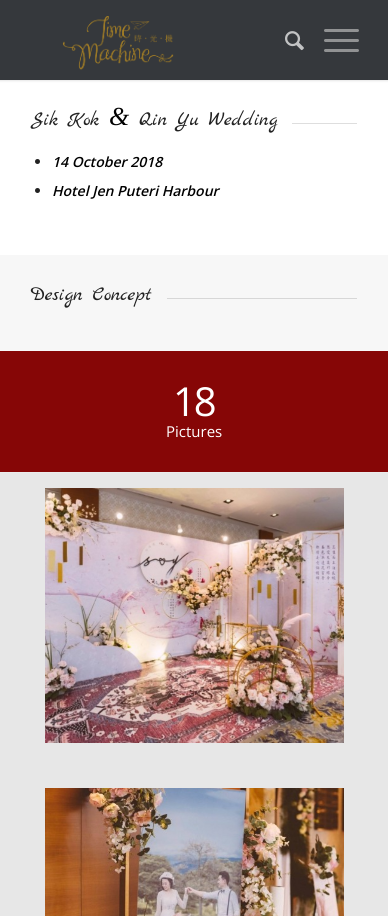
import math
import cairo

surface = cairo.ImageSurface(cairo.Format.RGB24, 388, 916)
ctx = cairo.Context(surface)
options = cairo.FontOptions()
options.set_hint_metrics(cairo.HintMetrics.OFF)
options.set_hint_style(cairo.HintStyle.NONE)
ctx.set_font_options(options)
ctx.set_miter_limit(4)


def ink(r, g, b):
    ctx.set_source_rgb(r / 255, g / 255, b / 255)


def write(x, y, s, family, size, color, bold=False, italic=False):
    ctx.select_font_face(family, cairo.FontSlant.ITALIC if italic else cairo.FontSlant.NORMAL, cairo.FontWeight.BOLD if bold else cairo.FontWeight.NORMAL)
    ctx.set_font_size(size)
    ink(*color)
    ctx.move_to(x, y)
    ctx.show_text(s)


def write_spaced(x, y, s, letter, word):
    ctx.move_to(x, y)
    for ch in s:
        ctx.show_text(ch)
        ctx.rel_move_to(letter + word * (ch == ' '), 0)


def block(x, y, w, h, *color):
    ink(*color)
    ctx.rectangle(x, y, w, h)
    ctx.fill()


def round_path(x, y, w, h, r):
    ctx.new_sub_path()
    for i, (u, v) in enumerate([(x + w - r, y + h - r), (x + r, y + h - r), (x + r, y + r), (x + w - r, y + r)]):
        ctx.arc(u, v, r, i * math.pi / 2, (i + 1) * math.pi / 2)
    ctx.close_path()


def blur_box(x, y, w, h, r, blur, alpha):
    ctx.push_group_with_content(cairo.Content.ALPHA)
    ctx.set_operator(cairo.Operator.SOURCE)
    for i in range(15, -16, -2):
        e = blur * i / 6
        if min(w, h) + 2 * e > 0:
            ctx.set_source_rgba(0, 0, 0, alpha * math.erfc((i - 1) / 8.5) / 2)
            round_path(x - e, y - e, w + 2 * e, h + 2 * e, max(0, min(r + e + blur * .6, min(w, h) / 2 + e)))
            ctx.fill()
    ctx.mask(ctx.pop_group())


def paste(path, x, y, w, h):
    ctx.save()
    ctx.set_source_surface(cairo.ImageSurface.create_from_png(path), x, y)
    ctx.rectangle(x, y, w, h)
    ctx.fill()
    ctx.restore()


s1 = dict(family="Marck Script", size=20, color=(34, 34, 34))
s2 = dict(family="Liberation Serif", size=26, color=(0, 0, 0), italic=True)
s3 = dict(family="Open Sans SemiBold", size=14, color=(0, 0, 0), italic=True)
s4 = dict(family="Open Sans", size=15, color=(255, 255, 255))

ink(255, 255, 255)
ctx.paint()
ink(0, 0, 0)
blur_box(-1, -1, 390, 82, 0, 1, 0.1)
block(0, 0, 388, 80, 53, 56, 60)
paste("pic1.png", 62, 16, 112, 54)
paste("pic2.png", 285, 31, 19, 20)
ink(145, 146, 147)
round_path(324, 39, 35, 3, 1.5)
ctx.fill()
round_path(324, 29, 35, 3, 1.5)
ctx.fill()
round_path(324, 49, 35, 3, 1.5)
ctx.fill()
write(31, 125, "Sik Kok", **s1)
write(109, 125, "&", **s2)
write(139, 125, "Qin Yu Wedding", **s1)
block(292, 123, 65, 1, 222, 222, 222)
ink(34, 34, 34)
ctx.new_path()
ctx.arc(37.5, 161.5, 2.5, 0, 2 * math.pi)
ctx.fill()
write(52, 167, "14 October 2018", **s3)
ink(34, 34, 34)
ctx.new_path()
ctx.arc(37.5, 190.5, 2.5, 0, 2 * math.pi)
ctx.fill()
write(52, 196, "Hotel Jen Puteri Harbour", **s3)
block(0, 255, 388, 96, 247, 247, 247)
write(31, 300, "Design Concept", **s1)
block(167, 298, 190, 1, 215, 215, 215)
block(0, 351, 388, 121, 134, 6, 6)
ctx.select_font_face("Open Sans")
ctx.set_font_size(40)
ink(255, 255, 255)
write_spaced(173, 416, "18", -2, 0)
write(166, 437, "Pictures", **s4)
block(0, 472, 388, 1, 235, 235, 235)
block(0, 473, 388, 443, 231, 231, 231)
paste("pic3.png", 45, 488, 299, 255)
paste("pic4.png", 45, 788, 299, 128)
surface.write_to_png("screenshot.png")
